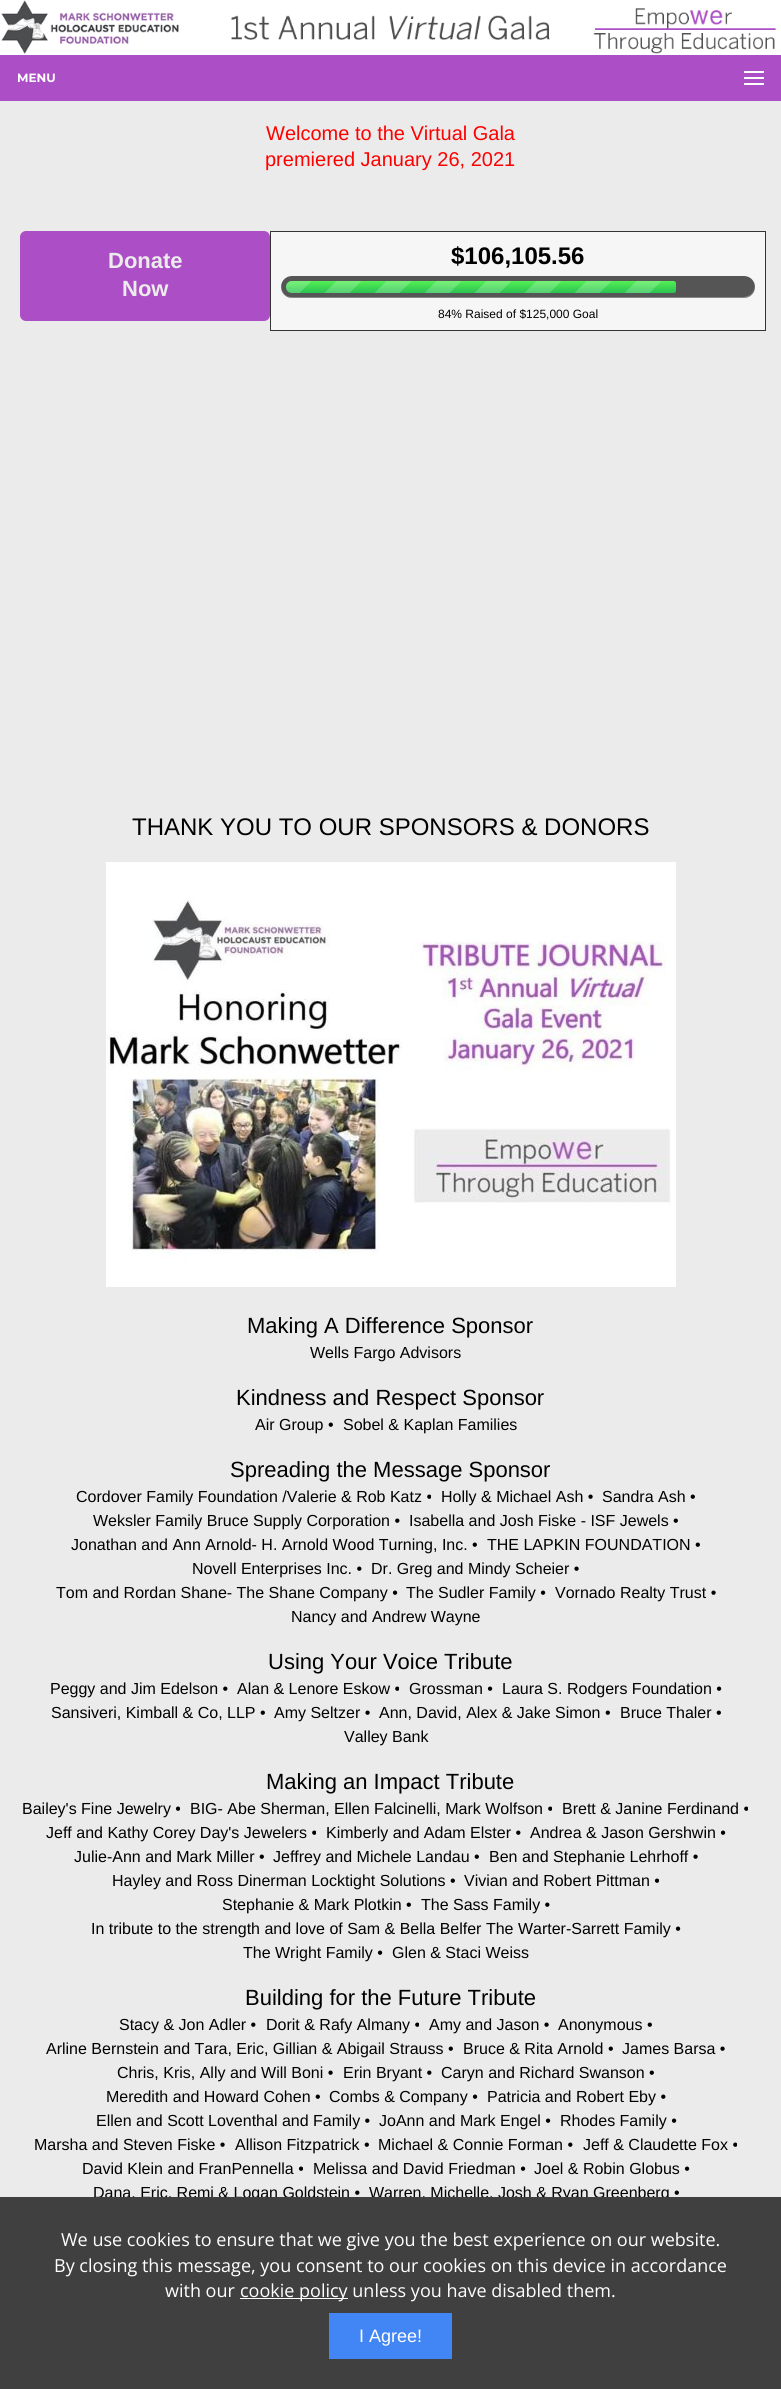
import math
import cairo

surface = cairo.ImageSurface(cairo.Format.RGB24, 781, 2389)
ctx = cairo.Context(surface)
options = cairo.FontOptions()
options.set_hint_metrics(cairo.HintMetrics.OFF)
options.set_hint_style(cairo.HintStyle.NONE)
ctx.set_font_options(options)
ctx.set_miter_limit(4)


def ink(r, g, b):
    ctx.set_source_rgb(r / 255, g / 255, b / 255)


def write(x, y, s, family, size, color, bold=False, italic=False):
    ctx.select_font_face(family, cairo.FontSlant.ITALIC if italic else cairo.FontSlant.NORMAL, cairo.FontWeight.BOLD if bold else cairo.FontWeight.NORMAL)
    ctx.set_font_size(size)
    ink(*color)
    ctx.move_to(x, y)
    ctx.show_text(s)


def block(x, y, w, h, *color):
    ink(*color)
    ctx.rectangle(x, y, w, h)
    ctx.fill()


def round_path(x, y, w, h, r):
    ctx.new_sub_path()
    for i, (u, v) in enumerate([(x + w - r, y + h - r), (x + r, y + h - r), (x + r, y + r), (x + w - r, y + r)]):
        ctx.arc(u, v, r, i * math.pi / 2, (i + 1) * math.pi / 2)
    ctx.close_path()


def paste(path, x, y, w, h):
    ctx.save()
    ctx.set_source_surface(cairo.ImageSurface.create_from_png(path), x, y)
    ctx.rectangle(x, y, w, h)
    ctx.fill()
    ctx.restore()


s1 = dict(family="Montserrat", size=12, color=(255, 255, 255), bold=True)
s2 = dict(family="Liberation Sans", size=20, color=(255, 0, 0))
s3 = dict(family="Liberation Sans", size=22, color=(236, 236, 236), bold=True)
s4 = dict(family="Liberation Sans", size=24, color=(0, 0, 0), bold=True)
s5 = dict(family="Liberation Sans", size=12, color=(0, 0, 0))
s6 = dict(family="Liberation Sans", size=24, color=(0, 0, 0))
s7 = dict(family="Liberation Sans", size=22, color=(0, 0, 0))
s8 = dict(family="Liberation Sans", size=16, color=(0, 0, 0))
s9 = dict(family="Open Sans", size=18, color=(255, 255, 255))
s10 = dict(family="Liberation Sans", size=18, color=(255, 255, 255))

ink(255, 255, 255)
ctx.paint()
paste("pic1.png", 1, 0, 775, 54)
block(0, 55, 781, 46, 172, 79, 198)
block(744, 71, 20, 2, 255, 255, 255)
write(17, 82, "MENU", **s1)
block(744, 77, 20, 2, 255, 255, 255)
block(744, 83, 20, 2, 255, 255, 255)
block(0, 101, 781, 2096, 235, 235, 235)
write(266, 140, "Welcome to the Virtual Gala", **s2)
write(265, 166, "premiered January 26, 2021", **s2)
ink(172, 79, 198)
round_path(20, 231, 250, 90, 6)
ctx.fill()
write(108, 268, "Donate", **s3)
write(122, 296, "Now", **s3)
ink(247, 246, 246)
ctx.rectangle(270.5, 231.5, 495, 99)
ctx.fill_preserve()
ink(51, 51, 51)
ctx.set_line_width(1)
ctx.stroke()
write(451, 264, "$106,105.56", **s4)
ink(85, 85, 85)
round_path(281, 276, 474, 22, 11)
ctx.fill()
ctx.set_source_rgba(1, 1, 1, 0.3)
ctx.new_path()
ctx.move_to(282, 282)
ctx.curve_to(280, 287, 281, 293, 286, 296)
ctx.curve_to(288, 297, 290, 298, 292, 298)
ctx.line_to(744, 298)
ctx.curve_to(751, 298, 756, 291, 755, 284)
ctx.curve_to(755, 289, 753, 294, 748, 296)
ctx.line_to(744, 297)
ctx.line_to(292, 297)
ctx.curve_to(283, 297, 280, 289, 282, 282)
ctx.close_path()
ctx.fill()
gradient = cairo.LinearGradient(286, 293, 286, 281)
gradient.add_color_stop_rgba(0, 0.169, 0.761, 0.325, 1)
gradient.add_color_stop_rgba(1, 0.329, 0.941, 0.329, 1)
ctx.set_source(gradient)
ctx.new_path()
ctx.move_to(292, 281)
ctx.line_to(673.5, 281)
ctx.curve_to(675, 281, 676, 282, 676, 283.5)
ctx.line_to(676, 290.5)
ctx.curve_to(676, 292, 675, 293, 673.5, 293)
ctx.line_to(292, 293)
ctx.curve_to(288.5, 293, 286, 290.5, 286, 287)
ctx.curve_to(286, 283.5, 288.5, 281, 292, 281)
ctx.close_path()
ctx.fill()
gradient = cairo.LinearGradient(286, 281, 336, 331)
gradient.add_color_stop_rgba(0.25, 1, 1, 1, 0.2)
gradient.add_color_stop_rgba(0.25, 1, 1, 1, 0)
gradient.add_color_stop_rgba(0.5, 1, 1, 1, 0)
gradient.add_color_stop_rgba(0.5, 1, 1, 1, 0.2)
gradient.add_color_stop_rgba(0.75, 1, 1, 1, 0.2)
gradient.add_color_stop_rgba(0.75, 1, 1, 1, 0)
gradient.add_color_stop_rgba(1, 0, 0, 0, 0)
ctx.set_source(gradient)
ctx.new_path()
ctx.move_to(292, 281)
ctx.line_to(336, 281)
ctx.line_to(336, 293)
ctx.line_to(292, 293)
ctx.curve_to(288.5, 293, 286, 290.5, 286, 287)
ctx.curve_to(286, 283.5, 288.5, 281, 292, 281)
ctx.close_path()
ctx.fill()
gradient = cairo.LinearGradient(336, 281, 386, 331)
gradient.add_color_stop_rgba(0.25, 1, 1, 1, 0.2)
gradient.add_color_stop_rgba(0.25, 1, 1, 1, 0)
gradient.add_color_stop_rgba(0.5, 1, 1, 1, 0)
gradient.add_color_stop_rgba(0.5, 1, 1, 1, 0.2)
gradient.add_color_stop_rgba(0.75, 1, 1, 1, 0.2)
gradient.add_color_stop_rgba(0.75, 1, 1, 1, 0)
gradient.add_color_stop_rgba(1, 0, 0, 0, 0)
ctx.set_source(gradient)
ctx.rectangle(336, 281, 50, 12)
ctx.fill()
gradient = cairo.LinearGradient(386, 281, 436, 331)
gradient.add_color_stop_rgba(0.25, 1, 1, 1, 0.2)
gradient.add_color_stop_rgba(0.25, 1, 1, 1, 0)
gradient.add_color_stop_rgba(0.5, 1, 1, 1, 0)
gradient.add_color_stop_rgba(0.5, 1, 1, 1, 0.2)
gradient.add_color_stop_rgba(0.75, 1, 1, 1, 0.2)
gradient.add_color_stop_rgba(0.75, 1, 1, 1, 0)
gradient.add_color_stop_rgba(1, 0, 0, 0, 0)
ctx.set_source(gradient)
ctx.rectangle(386, 281, 50, 12)
ctx.fill()
gradient = cairo.LinearGradient(436, 281, 486, 331)
gradient.add_color_stop_rgba(0.25, 1, 1, 1, 0.2)
gradient.add_color_stop_rgba(0.25, 1, 1, 1, 0)
gradient.add_color_stop_rgba(0.5, 1, 1, 1, 0)
gradient.add_color_stop_rgba(0.5, 1, 1, 1, 0.2)
gradient.add_color_stop_rgba(0.75, 1, 1, 1, 0.2)
gradient.add_color_stop_rgba(0.75, 1, 1, 1, 0)
gradient.add_color_stop_rgba(1, 0, 0, 0, 0)
ctx.set_source(gradient)
ctx.rectangle(436, 281, 50, 12)
ctx.fill()
gradient = cairo.LinearGradient(486, 281, 536, 331)
gradient.add_color_stop_rgba(0.25, 1, 1, 1, 0.2)
gradient.add_color_stop_rgba(0.25, 1, 1, 1, 0)
gradient.add_color_stop_rgba(0.5, 1, 1, 1, 0)
gradient.add_color_stop_rgba(0.5, 1, 1, 1, 0.2)
gradient.add_color_stop_rgba(0.75, 1, 1, 1, 0.2)
gradient.add_color_stop_rgba(0.75, 1, 1, 1, 0)
gradient.add_color_stop_rgba(1, 0, 0, 0, 0)
ctx.set_source(gradient)
ctx.rectangle(486, 281, 50, 12)
ctx.fill()
gradient = cairo.LinearGradient(536, 281, 586, 331)
gradient.add_color_stop_rgba(0.25, 1, 1, 1, 0.2)
gradient.add_color_stop_rgba(0.25, 1, 1, 1, 0)
gradient.add_color_stop_rgba(0.5, 1, 1, 1, 0)
gradient.add_color_stop_rgba(0.5, 1, 1, 1, 0.2)
gradient.add_color_stop_rgba(0.75, 1, 1, 1, 0.2)
gradient.add_color_stop_rgba(0.75, 1, 1, 1, 0)
gradient.add_color_stop_rgba(1, 0, 0, 0, 0)
ctx.set_source(gradient)
ctx.rectangle(536, 281, 50, 12)
ctx.fill()
gradient = cairo.LinearGradient(586, 281, 636, 331)
gradient.add_color_stop_rgba(0.25, 1, 1, 1, 0.2)
gradient.add_color_stop_rgba(0.25, 1, 1, 1, 0)
gradient.add_color_stop_rgba(0.5, 1, 1, 1, 0)
gradient.add_color_stop_rgba(0.5, 1, 1, 1, 0.2)
gradient.add_color_stop_rgba(0.75, 1, 1, 1, 0.2)
gradient.add_color_stop_rgba(0.75, 1, 1, 1, 0)
gradient.add_color_stop_rgba(1, 0, 0, 0, 0)
ctx.set_source(gradient)
ctx.rectangle(586, 281, 50, 12)
ctx.fill()
gradient = cairo.LinearGradient(636, 281, 686, 331)
gradient.add_color_stop_rgba(0.25, 1, 1, 1, 0.2)
gradient.add_color_stop_rgba(0.25, 1, 1, 1, 0)
gradient.add_color_stop_rgba(0.5, 1, 1, 1, 0)
gradient.add_color_stop_rgba(0.5, 1, 1, 1, 0.2)
gradient.add_color_stop_rgba(0.75, 1, 1, 1, 0.2)
gradient.add_color_stop_rgba(0.75, 1, 1, 1, 0)
gradient.add_color_stop_rgba(1, 0, 0, 0, 0)
ctx.set_source(gradient)
ctx.new_path()
ctx.move_to(636, 281)
ctx.line_to(673.5, 281)
ctx.curve_to(675, 281, 676, 282, 676, 283.5)
ctx.line_to(676, 290.5)
ctx.curve_to(676, 292, 675, 293, 673.5, 293)
ctx.line_to(636, 293)
ctx.close_path()
ctx.fill()
write(438, 318, "84% Raised of $125,000 Goal", **s5)
write(132, 835, "THANK YOU TO OUR SPONSORS & DONORS", **s6)
paste("pic2.png", 106, 862, 570, 425)
write(247, 1333, "Making A Difference Sponsor", **s7)
write(310, 1358, "Wells Fargo Advisors", **s8)
write(236, 1405, "Kindness and Respect Sponsor", **s7)
write(255, 1430, "Air Group •", **s8)
write(343, 1430, "Sobel & Kaplan Families", **s8)
write(230, 1477, "Spreading the Message Sponsor", **s7)
write(76, 1502, "Cordover Family Foundation /Valerie & Rob Katz •", **s8)
write(441, 1502, "Holly & Michael Ash •", **s8)
write(602, 1502, "Sandra Ash •", **s8)
write(93, 1526, "Weksler Family Bruce Supply Corporation •", **s8)
write(409, 1526, "Isabella and Josh Fiske - ISF Jewels •", **s8)
write(71, 1550, "Jonathan and Ann Arnold- H. Arnold Wood Turning, Inc. •", **s8)
write(487, 1550, "THE LAPKIN FOUNDATION •", **s8)
write(192, 1574, "Novell Enterprises Inc. •", **s8)
write(371, 1574, "Dr. Greg and Mindy Scheier •", **s8)
write(56, 1598, "Tom and Rordan Shane- The Shane Company •", **s8)
write(406, 1598, "The Sudler Family •", **s8)
write(555, 1598, "Vornado Realty Trust •", **s8)
write(291, 1622, "Nancy and Andrew Wayne", **s8)
write(268, 1669, "Using Your Voice Tribute", **s7)
write(50, 1694, "Peggy and Jim Edelson •", **s8)
write(237, 1694, "Alan & Lenore Eskow •", **s8)
write(409, 1694, "Grossman •", **s8)
write(502, 1694, "Laura S. Rodgers Foundation •", **s8)
write(51, 1718, "Sansiveri, Kimball & Co, LLP •", **s8)
write(274, 1718, "Amy Seltzer •", **s8)
write(379, 1718, "Ann, David, Alex & Jake Simon •", **s8)
write(620, 1718, "Bruce Thaler •", **s8)
write(344, 1742, "Valley Bank", **s8)
write(266, 1789, "Making an Impact Tribute", **s7)
write(22, 1814, "Bailey's Fine Jewelry •", **s8)
write(190, 1814, "BIG- Abe Sherman, Ellen Falcinelli, Mark Wolfson •", **s8)
write(562, 1814, "Brett & Janine Ferdinand •", **s8)
write(46, 1838, "Jeff and Kathy Corey Day's Jewelers •", **s8)
write(326, 1838, "Kimberly and Adam Elster •", **s8)
write(530, 1838, "Andrea & Jason Gershwin •", **s8)
write(74, 1862, "Julie-Ann and Mark Miller •", **s8)
write(273, 1862, "Jeffrey and Michele Landau •", **s8)
write(489, 1862, "Ben and Stephanie Lehrhoff •", **s8)
write(112, 1886, "Hayley and Ross Dinerman Locktight Solutions •", **s8)
write(464, 1886, "Vivian and Robert Pittman •", **s8)
write(222, 1910, "Stephanie & Mark Plotkin •", **s8)
write(421, 1910, "The Sass Family •", **s8)
write(91, 1934, "In tribute to the strength and love of Sam & Bella Belfer The Warter-Sarrett Family •", **s8)
write(243, 1958, "The Wright Family •", **s8)
write(392, 1958, "Glen & Staci Weiss", **s8)
write(245, 2005, "Building for the Future Tribute", **s7)
write(119, 2030, "Stacy & Jon Adler •", **s8)
write(266, 2030, "Dorit & Rafy Almany •", **s8)
write(429, 2030, "Amy and Jason •", **s8)
write(558, 2030, "Anonymous •", **s8)
write(46, 2054, "Arline Bernstein and Tara, Eric, Gillian & Abigail Strauss •", **s8)
write(463, 2054, "Bruce & Rita Arnold •", **s8)
write(622, 2054, "James Barsa •", **s8)
write(117, 2078, "Chris, Kris, Ally and Will Boni •", **s8)
write(343, 2078, "Erin Bryant •", **s8)
write(441, 2078, "Caryn and Richard Swanson •", **s8)
write(106, 2102, "Meredith and Howard Cohen •", **s8)
write(329, 2102, "Combs & Company •", **s8)
write(487, 2102, "Patricia and Robert Eby •", **s8)
write(96, 2126, "Ellen and Scott Loventhal and Family •", **s8)
write(379, 2126, "JoAnn and Mark Engel •", **s8)
write(560, 2126, "Rhodes Family •", **s8)
write(34, 2150, "Marsha and Steven Fiske •", **s8)
write(235, 2150, "Allison Fitzpatrick •", **s8)
write(378, 2150, "Michael & Connie Forman •", **s8)
write(583, 2150, "Jeff & Claudette Fox •", **s8)
write(82, 2174, "David Klein and FranPennella •", **s8)
write(313, 2174, "Melissa and David Friedman •", **s8)
write(534, 2174, "Joel & Robin Globus •", **s8)
write(93, 2198, "Dana, Eric, Remi & Logan Goldstein •", **s8)
write(369, 2198, "Warren, Michelle, Josh & Ryan Greenberg •", **s8)
block(0, 2197, 781, 192, 64, 64, 64)
write(61, 2246, "We use cookies to ensure that we give you the best experience on our website.", **s9)
write(54, 2272, "By closing this message, you consent to our cookies on this device in accordance", **s9)
write(165, 2297, "with our", **s9)
block(240, 2298, 108, 1, 255, 255, 255)
write(240, 2297, "cookie policy unless you have disabled them.", **s9)
block(329, 2313, 123, 46, 66, 133, 244)
write(359, 2342, "I Agree!", **s10)
surface.write_to_png("screenshot.png")
